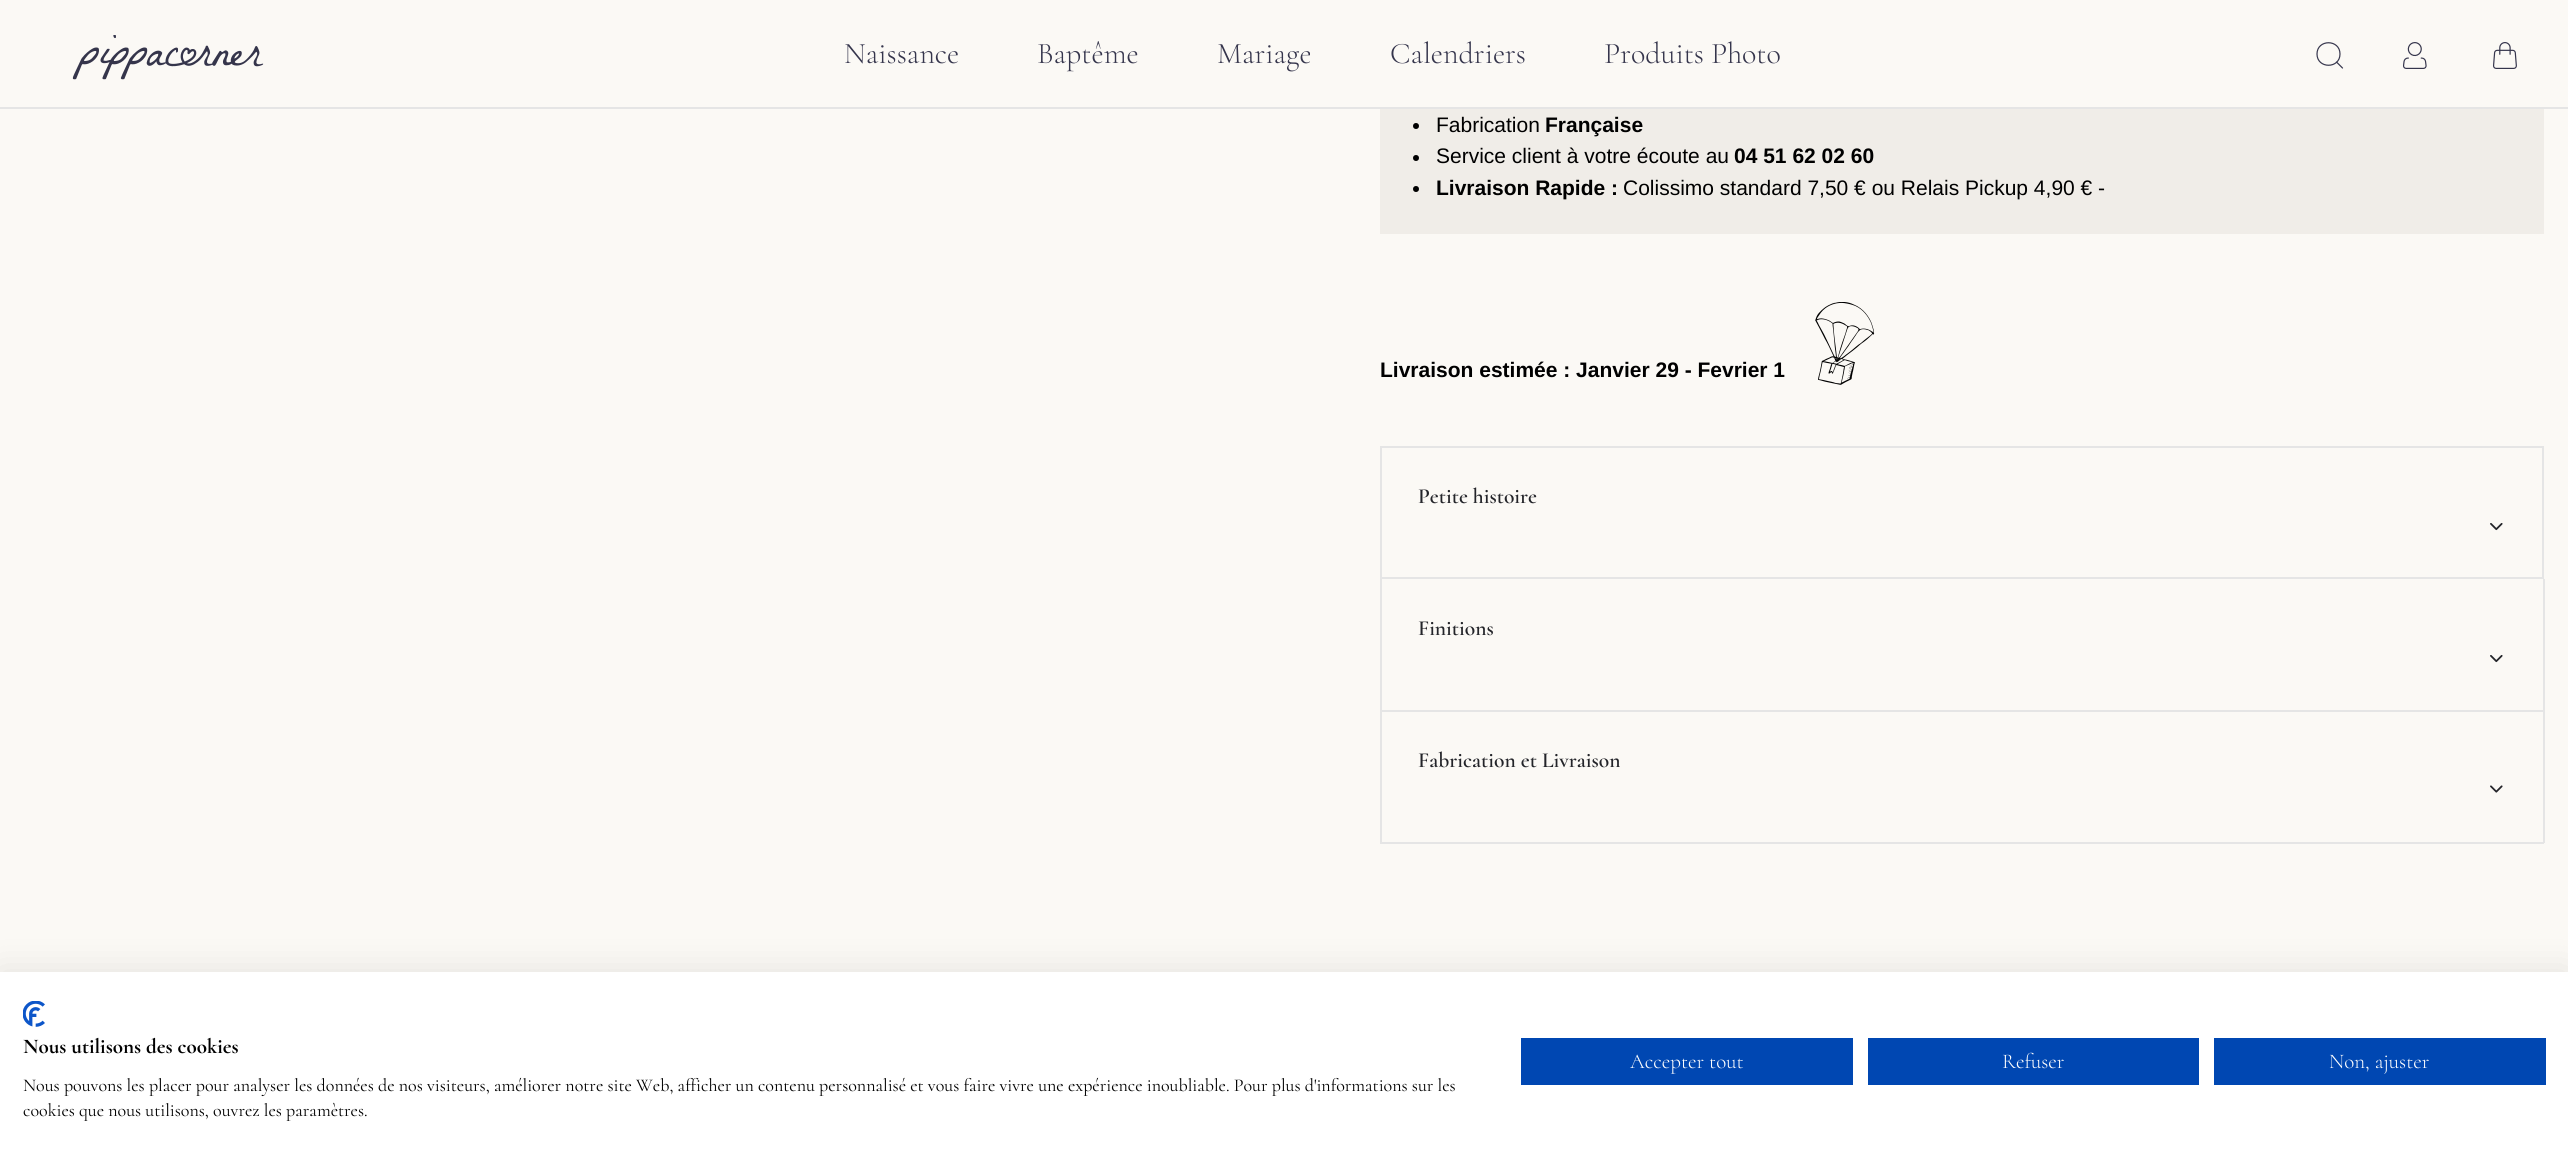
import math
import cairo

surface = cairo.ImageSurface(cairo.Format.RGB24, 2568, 1163)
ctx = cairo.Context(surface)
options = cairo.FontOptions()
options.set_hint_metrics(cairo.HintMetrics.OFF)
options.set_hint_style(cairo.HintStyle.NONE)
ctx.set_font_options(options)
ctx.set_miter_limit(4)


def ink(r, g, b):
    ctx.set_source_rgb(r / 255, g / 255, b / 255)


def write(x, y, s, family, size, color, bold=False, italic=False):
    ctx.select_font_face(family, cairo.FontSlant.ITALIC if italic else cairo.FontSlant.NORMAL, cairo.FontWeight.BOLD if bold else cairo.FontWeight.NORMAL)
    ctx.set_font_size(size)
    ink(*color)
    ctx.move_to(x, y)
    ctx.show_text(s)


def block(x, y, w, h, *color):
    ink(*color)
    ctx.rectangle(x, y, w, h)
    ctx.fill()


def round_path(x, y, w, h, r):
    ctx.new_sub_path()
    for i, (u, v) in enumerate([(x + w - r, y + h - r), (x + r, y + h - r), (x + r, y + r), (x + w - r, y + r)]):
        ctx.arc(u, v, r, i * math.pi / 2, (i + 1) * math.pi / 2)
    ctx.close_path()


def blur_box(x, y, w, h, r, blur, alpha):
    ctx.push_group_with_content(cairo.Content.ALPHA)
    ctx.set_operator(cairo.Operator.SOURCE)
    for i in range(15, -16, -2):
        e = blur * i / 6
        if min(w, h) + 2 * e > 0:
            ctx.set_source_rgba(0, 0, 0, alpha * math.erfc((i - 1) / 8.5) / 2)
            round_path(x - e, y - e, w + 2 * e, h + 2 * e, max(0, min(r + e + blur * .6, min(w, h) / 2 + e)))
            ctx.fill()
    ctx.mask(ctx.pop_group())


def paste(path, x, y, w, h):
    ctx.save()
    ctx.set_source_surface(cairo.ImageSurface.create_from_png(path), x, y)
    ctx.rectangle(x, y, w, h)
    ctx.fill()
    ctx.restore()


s1 = dict(family="Cormorant Garamond Light", size=30, color=(53, 53, 76))
s2 = dict(family="Liberation Sans", size=21, color=(0, 0, 0))
s3 = dict(family="Liberation Sans", size=21, color=(0, 0, 0), bold=True)
s4 = dict(family="Cormorant SemiBold", size=21.5, color=(35, 36, 41))
s5 = dict(family="Cormorant", size=21, color=(0, 0, 0), bold=True)
s6 = dict(family="Cormorant", size=18, color=(0, 0, 0))
s7 = dict(family="Cormorant Light", size=21, color=(255, 255, 255))

ink(251, 249, 245)
ctx.paint()
block(0, 107, 2568, 2, 229, 229, 229)
paste("pic1.png", 72, 35, 192, 45)
write(844, 63, "Naissance", **s1)
write(1037, 63, "Baptême", **s1)
write(1217, 63, "Mariage", **s1)
write(1390, 63, "Calendriers", **s1)
write(1604, 63, "Produits Photo", **s1)
ctx.new_path()
ctx.move_to(2342.5, 68)
ctx.line_to(2336.5, 62)
ctx.move_to(2340, 54)
ctx.curve_to(2340, 69, 2317, 69, 2317, 54)
ctx.curve_to(2317, 39, 2340, 39, 2340, 54)
ctx.close_path()
ctx.set_line_width(1.2)
ctx.set_line_cap(cairo.LineCap.ROUND)
ctx.stroke()
paste("pic2.png", 2403, 42, 24, 27)
paste("pic3.png", 2493, 42, 24, 27)
block(1380, 109, 1164, 125, 240, 237, 232)
ink(0, 0, 0)
ctx.arc(1416, 126, 3, 0, 2 * math.pi)
ctx.fill()
write(1436, 132, "Fabrication", **s2)
write(1545, 132, "Française", **s3)
ctx.new_path()
ctx.arc(1416, 158, 3, 0, 2 * math.pi)
ctx.fill()
write(1436, 163, "Service client à votre écoute au", **s2)
write(1734, 163, "04 51 62 02 60", **s3)
ctx.new_path()
ctx.arc(1416, 189, 3, 0, 2 * math.pi)
ctx.fill()
write(1436, 195, "Livraison Rapide :", **s3)
write(1623, 195, "Colissimo standard 7,50 € ou Relais Pickup 4,90 € -", **s2)
write(1380, 377, "Livraison estimée : Janvier 29 - Fevrier 1", **s3)
paste("pic4.png", 1815, 302, 60, 83)
ctx.rectangle(1381, 447, 1162, 131)
ink(229, 229, 229)
ctx.set_line_width(2)
ctx.set_line_cap(cairo.LineCap.BUTT)
ctx.stroke()
write(1418, 503, "Petite histoire", **s4)
paste("pic5.png", 2490, 523, 13, 8)
block(2543, 579, 2, 132, 229, 229, 229)
block(1380, 710, 1164, 2, 229, 229, 229)
block(1380, 579, 2, 132, 229, 229, 229)
write(1418, 635, "Finitions", **s4)
paste("pic5.png", 2490, 655, 13, 8)
block(2543, 711, 2, 132, 229, 229, 229)
block(1380, 842, 1164, 2, 229, 229, 229)
block(1380, 711, 2, 132, 229, 229, 229)
write(1418, 767, "Fabrication et Livraison", **s4)
paste("pic6.png", 2490, 785, 13, 8)
ink(0, 0, 0)
blur_box(0, 972, 2568, 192, 0, 18, 0.1)
block(0, 972, 2568, 191, 255, 255, 255)
paste("pic7.png", 23, 1001, 22, 26)
write(23, 1053, "Nous utilisons des cookies", **s5)
write(23, 1091, "Nous pouvons les placer pour analyser les données de nos visiteurs, améliorer notre site Web, afficher un contenu personnalisé et vous faire vivre une expérience inoubliable. Pour plus d'informations sur les", **s6)
write(23, 1116, "cookies que nous utilisons, ouvrez les paramètres.", **s6)
block(1521, 1038, 332, 47, 0, 71, 178)
write(1630, 1068, "Accepter tout", **s7)
block(1868, 1038, 331, 47, 0, 71, 178)
write(2002, 1068, "Refuser", **s7)
block(2214, 1038, 332, 47, 0, 71, 178)
write(2329, 1068, "Non, ajuster", **s7)
surface.write_to_png("screenshot.png")
